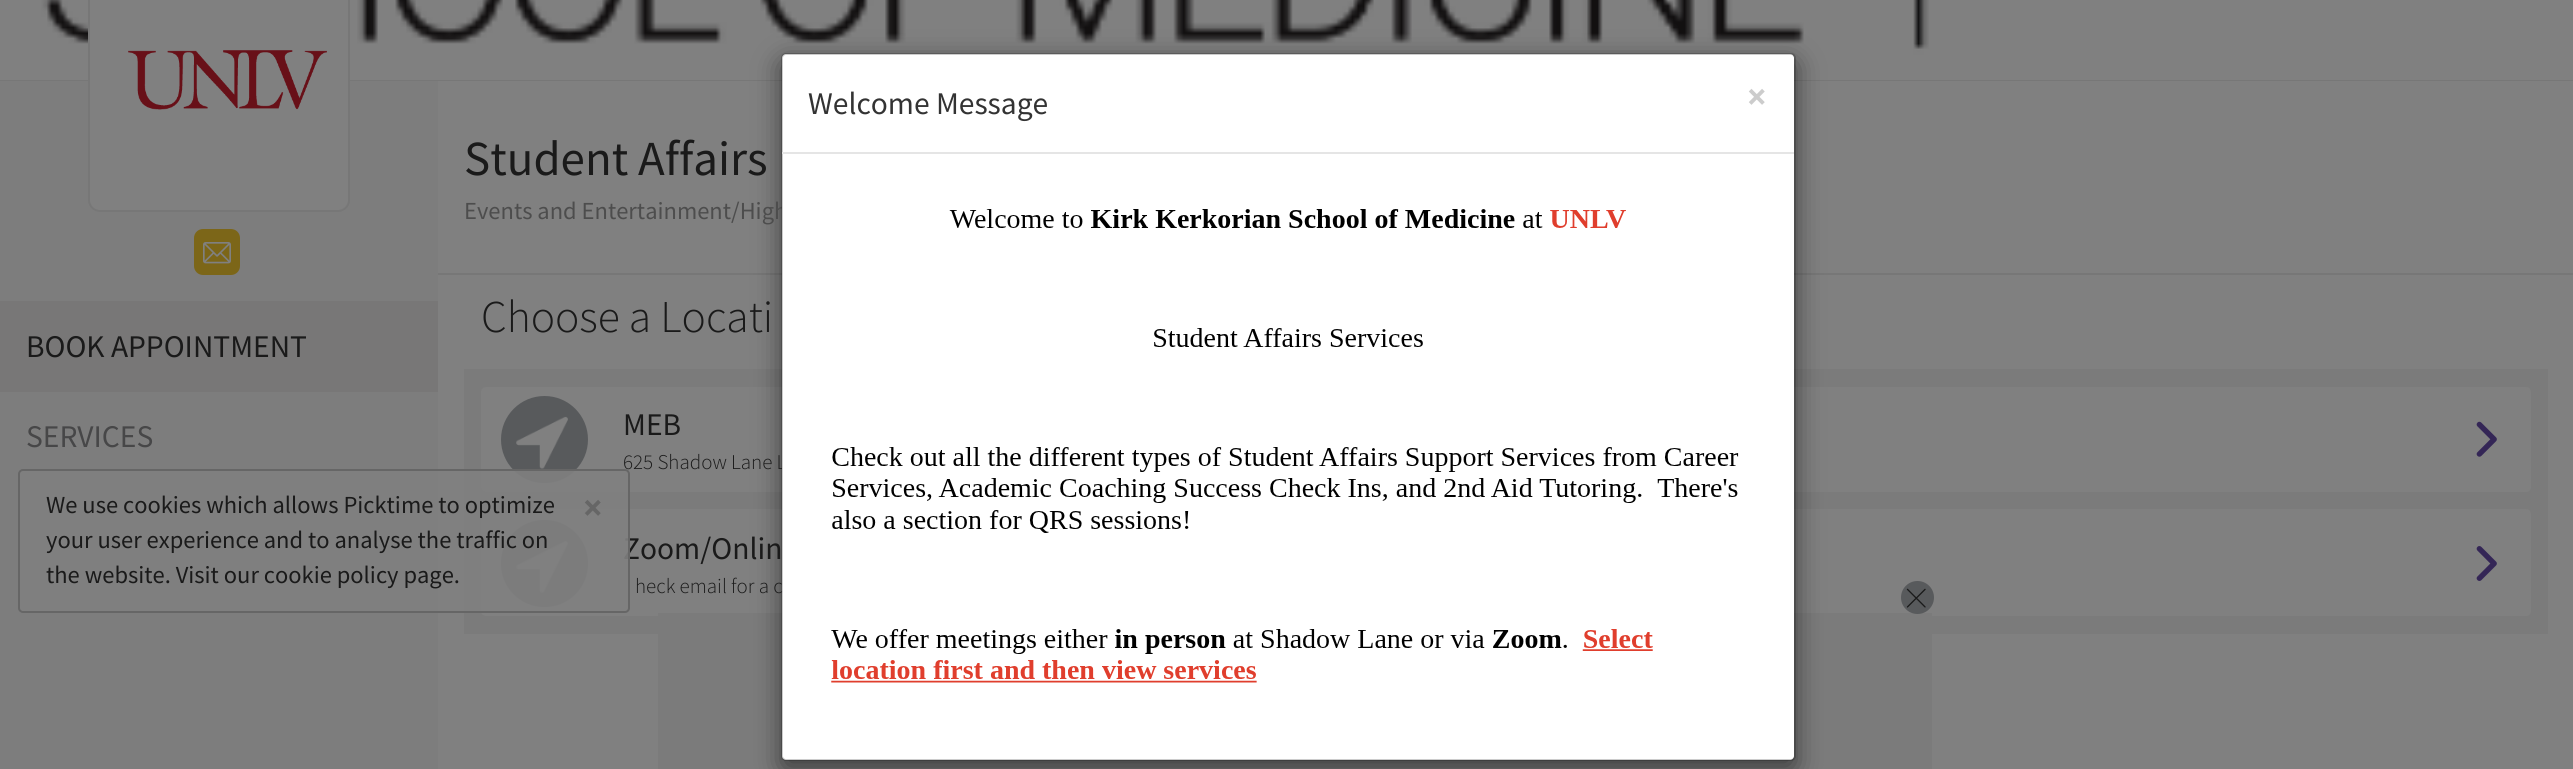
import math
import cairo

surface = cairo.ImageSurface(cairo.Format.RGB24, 2573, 769)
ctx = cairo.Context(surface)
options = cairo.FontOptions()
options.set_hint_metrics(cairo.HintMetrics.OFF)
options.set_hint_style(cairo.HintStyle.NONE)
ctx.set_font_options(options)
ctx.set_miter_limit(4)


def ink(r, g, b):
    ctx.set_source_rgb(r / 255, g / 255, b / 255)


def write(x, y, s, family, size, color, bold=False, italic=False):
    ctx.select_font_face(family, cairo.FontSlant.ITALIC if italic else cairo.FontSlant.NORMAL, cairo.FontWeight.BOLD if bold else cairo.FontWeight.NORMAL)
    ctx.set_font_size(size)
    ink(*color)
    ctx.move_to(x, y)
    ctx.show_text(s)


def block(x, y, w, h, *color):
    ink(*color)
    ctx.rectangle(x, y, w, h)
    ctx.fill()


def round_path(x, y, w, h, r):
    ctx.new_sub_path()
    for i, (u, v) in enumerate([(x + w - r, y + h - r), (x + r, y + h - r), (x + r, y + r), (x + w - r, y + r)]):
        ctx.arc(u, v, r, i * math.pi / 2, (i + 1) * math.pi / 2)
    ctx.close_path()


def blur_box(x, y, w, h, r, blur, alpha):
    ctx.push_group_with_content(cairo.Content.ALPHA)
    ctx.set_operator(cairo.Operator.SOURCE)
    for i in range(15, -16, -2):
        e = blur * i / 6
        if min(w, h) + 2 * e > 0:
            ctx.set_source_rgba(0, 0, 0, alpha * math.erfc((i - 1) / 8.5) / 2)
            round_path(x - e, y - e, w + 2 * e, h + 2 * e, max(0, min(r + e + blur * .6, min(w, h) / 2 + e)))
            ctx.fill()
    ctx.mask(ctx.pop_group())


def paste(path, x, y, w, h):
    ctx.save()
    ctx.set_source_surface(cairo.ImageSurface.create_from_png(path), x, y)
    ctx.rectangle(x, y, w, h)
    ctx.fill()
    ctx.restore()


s1 = dict(family="Source Sans Pro", size=24.5, color=(77, 77, 77))
s2 = dict(family="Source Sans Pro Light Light", size=21, color=(26, 26, 26))
s3 = dict(family="Source Sans Pro", size=31.5, color=(51, 51, 51))
s4 = dict(family="Source Sans Pro", size=37, color=(204, 204, 204), bold=True)
s5 = dict(family="Source Sans Pro", size=31.5, color=(26, 26, 26))
s6 = dict(family="Source Sans Pro", size=31.5, color=(71, 71, 72))
s7 = dict(family="Source Sans Pro", size=49, color=(26, 26, 26))
s8 = dict(family="Source Sans Pro Light Light", size=45.5, color=(26, 26, 26))
s9 = dict(family="Source Sans Pro", size=24.5, color=(26, 26, 26))
s10 = dict(family="Source Sans Pro", size=37, color=(102, 102, 102), bold=True)

ink(128, 128, 128)
ctx.paint()
block(0, 80, 2573, 1, 119, 119, 119)
paste("pic1.png", 0, 0, 2573, 80)
block(0, 81, 438, 688, 125, 125, 125)
ink(128, 128, 128)
round_path(89, -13, 260, 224, 11)
ctx.fill_preserve()
ink(119, 119, 119)
ctx.stroke()
paste("pic2.png", 128, 50, 199, 60)
block(438, 273, 2135, 2, 119, 119, 119)
block(464, 369, 2084, 265, 123, 123, 123)
ink(128, 128, 128)
round_path(481, 387, 2050, 105, 5)
ctx.fill()
round_path(481, 509, 2050, 107, 5)
ctx.fill()
block(658, 613, 1274, 156, 123, 123, 123)
ink(0, 0, 0)
blur_box(781, 61, 1015, 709, 5, 13, 0.5)
write(464, 219, "Events and Entertainment/High", **s1)
write(623, 469, "625 Shadow Lane L", **s2)
ink(255, 255, 255)
round_path(782, 54, 1012, 706, 4)
ctx.fill()
write(635, 593, "heck email for a c", **s2)
round_path(782, 54, 1013, 706, 4)
ctx.set_source_rgba(0, 0, 0, 0.2)
ctx.stroke()
block(782, 152, 1012, 2, 229, 229, 229)
write(808, 114, "Welcome Message", **s3)
write(1747, 109, "×", **s4)
paste("pic3.png", 831, 209, 908, 474)
ink(124, 102, 24)
round_path(194, 229, 46, 46, 9)
ctx.fill()
paste("pic4.png", 203, 242, 28, 22)
block(0, 301, 438, 91, 120, 119, 119)
write(26, 357, "BOOK APPOINTMENT", **s5)
write(26, 447, "SERVICES", **s6)
write(464, 175, "Student Affairs", **s7)
write(481, 332, "Choose a Locati", **s8)
ink(88, 90, 92)
ctx.new_path()
ctx.arc(544.5, 439.5, 43.5, 0, 2 * math.pi)
ctx.fill()
paste("pic5.png", 516, 416, 52, 53)
write(623, 435, "MEB", **s5)
paste("pic6.png", 2476, 421, 21, 36)
ink(88, 90, 92)
ctx.arc(544.5, 563.5, 43.5, 0, 2 * math.pi)
ctx.fill()
paste("pic7.png", 516, 541, 52, 52)
write(623, 559, "Zoom/Onlin", **s5)
paste("pic8.png", 2476, 546, 21, 35)
ctx.set_source_rgba(0.502, 0.502, 0.502, 0.9)
round_path(19, 470, 610, 142, 4)
ctx.fill_preserve()
ink(102, 102, 102)
ctx.stroke()
write(46, 513, "We use cookies which allows Picktime to optimize", **s9)
write(583, 520, "×", **s10)
write(46, 548, "your user experience and to analyse the traffic on", **s9)
write(46, 583, "the website. Visit our cookie policy page.", **s9)
ink(88, 90, 92)
ctx.new_path()
ctx.arc(1917.5, 597.5, 16.5, 0, 2 * math.pi)
ctx.fill()
paste("pic9.png", 1906, 588, 20, 20)
surface.write_to_png("screenshot.png")
